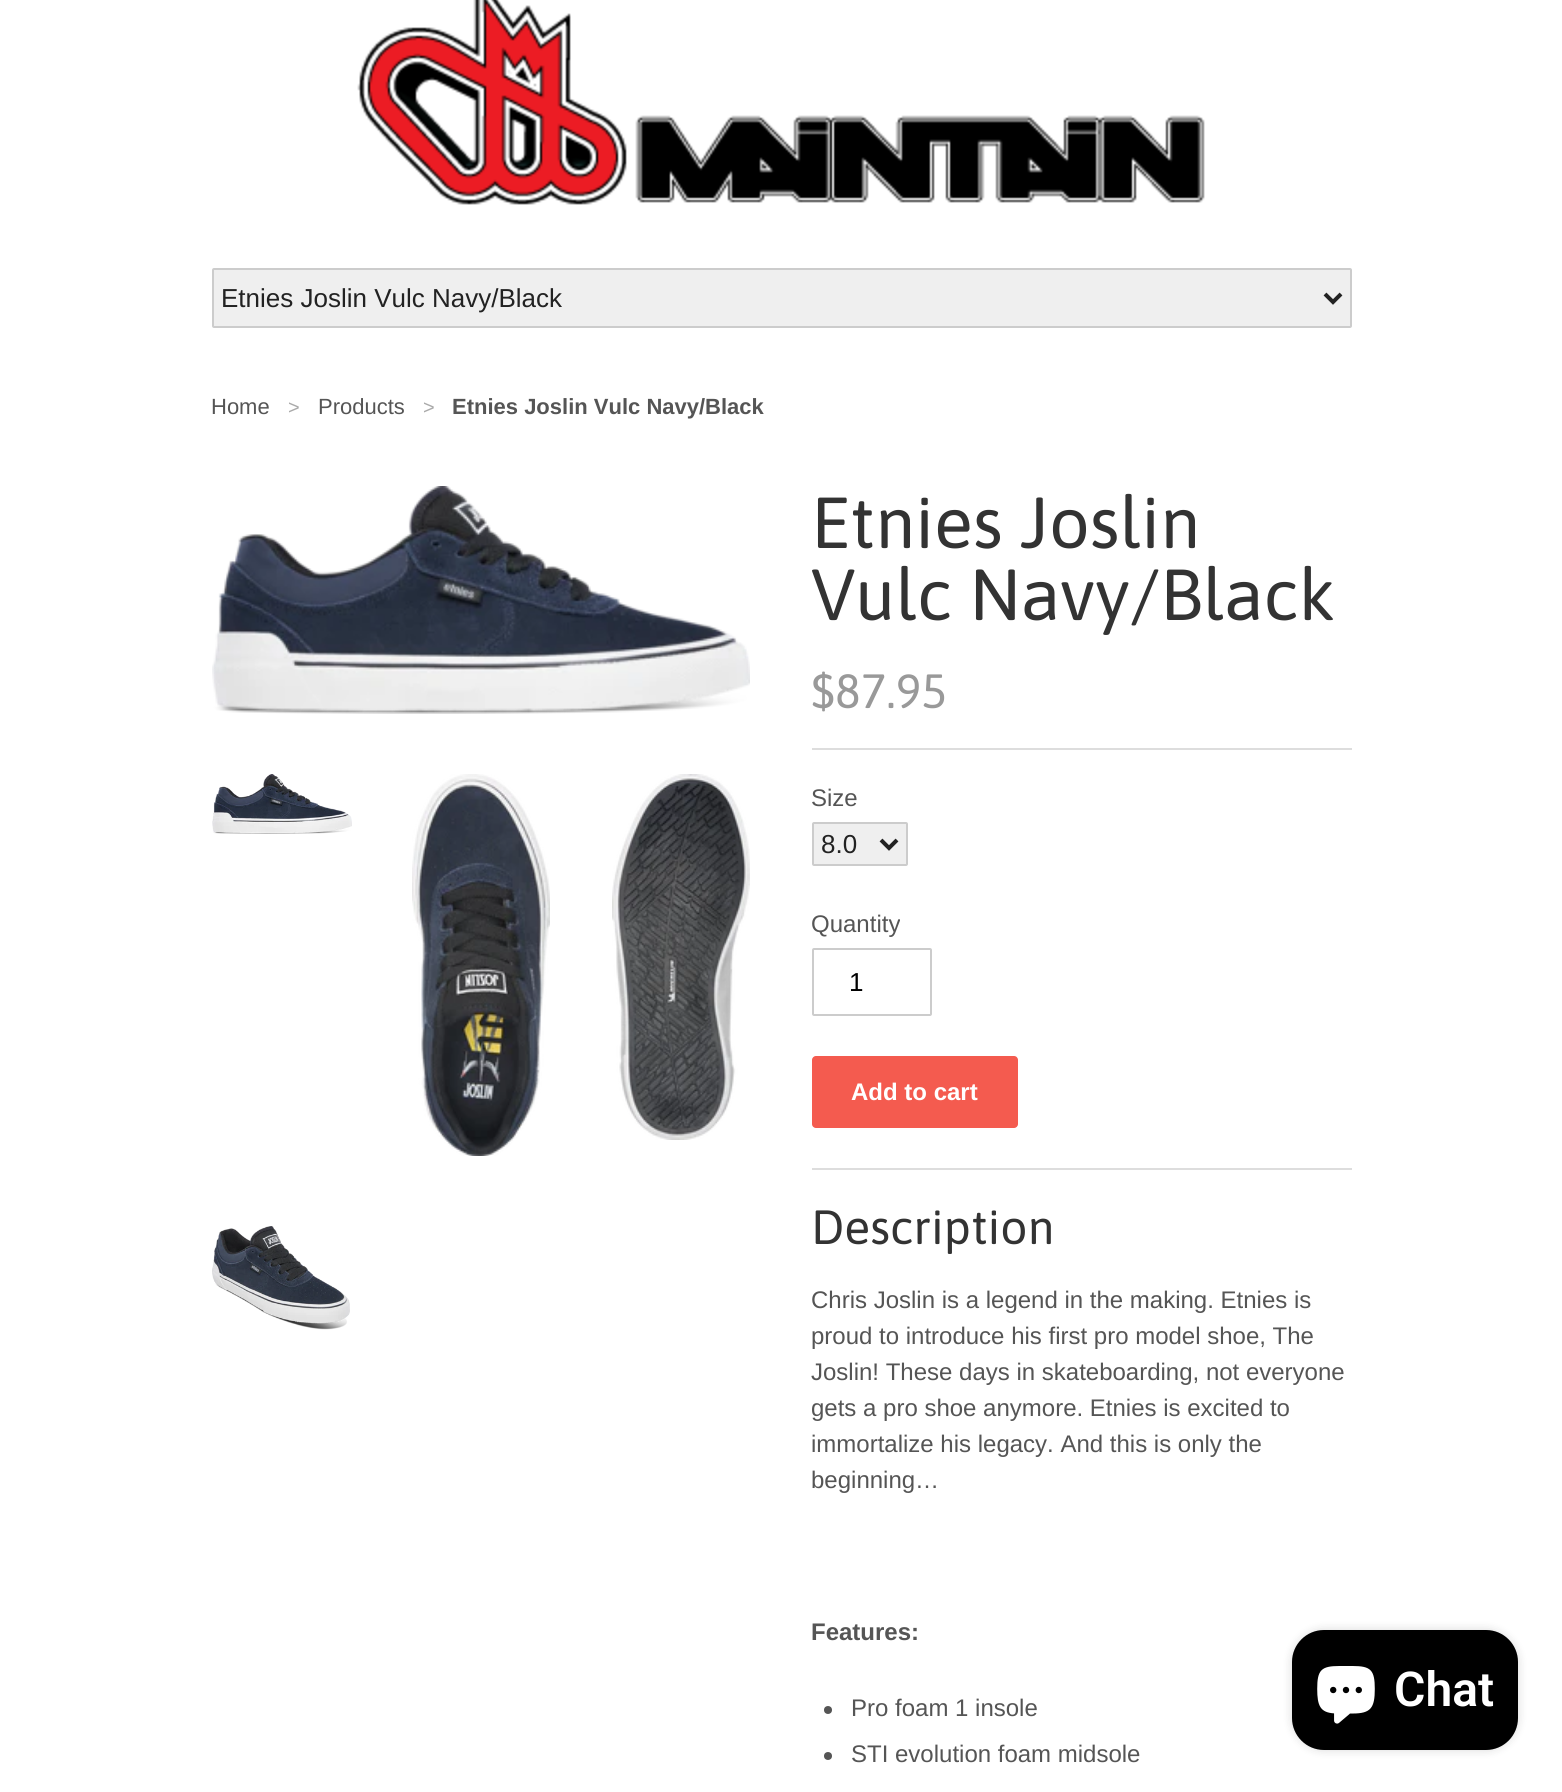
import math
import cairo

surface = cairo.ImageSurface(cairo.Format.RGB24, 1562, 1792)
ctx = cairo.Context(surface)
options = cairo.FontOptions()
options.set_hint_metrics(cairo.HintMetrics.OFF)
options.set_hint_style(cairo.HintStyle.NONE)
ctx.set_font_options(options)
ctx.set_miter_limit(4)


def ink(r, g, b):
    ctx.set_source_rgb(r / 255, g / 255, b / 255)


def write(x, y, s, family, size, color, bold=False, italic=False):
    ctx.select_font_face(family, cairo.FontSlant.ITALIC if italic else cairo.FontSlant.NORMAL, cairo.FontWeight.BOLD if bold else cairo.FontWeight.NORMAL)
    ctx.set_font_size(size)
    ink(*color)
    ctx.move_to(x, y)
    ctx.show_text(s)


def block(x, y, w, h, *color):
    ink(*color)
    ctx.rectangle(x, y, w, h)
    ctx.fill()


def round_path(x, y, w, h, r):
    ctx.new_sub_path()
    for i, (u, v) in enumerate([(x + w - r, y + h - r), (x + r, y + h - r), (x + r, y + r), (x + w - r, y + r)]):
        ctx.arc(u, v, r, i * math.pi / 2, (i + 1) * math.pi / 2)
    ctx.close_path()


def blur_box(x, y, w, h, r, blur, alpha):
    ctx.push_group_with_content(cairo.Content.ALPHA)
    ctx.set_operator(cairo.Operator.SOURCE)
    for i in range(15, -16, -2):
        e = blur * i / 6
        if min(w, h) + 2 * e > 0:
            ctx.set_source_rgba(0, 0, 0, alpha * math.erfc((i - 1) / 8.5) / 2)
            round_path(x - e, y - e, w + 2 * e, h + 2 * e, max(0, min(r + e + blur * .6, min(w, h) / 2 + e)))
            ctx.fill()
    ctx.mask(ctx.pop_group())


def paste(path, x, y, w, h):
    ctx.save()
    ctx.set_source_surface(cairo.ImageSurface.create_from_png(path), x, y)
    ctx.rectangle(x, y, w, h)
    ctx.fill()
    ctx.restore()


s1 = dict(family="Liberation Sans", size=26, color=(34, 34, 34))
s2 = dict(family="Liberation Sans", size=22, color=(85, 85, 85))
s3 = dict(family="Liberation Sans", size=20, color=(170, 170, 170))
s4 = dict(family="Liberation Sans", size=22, color=(85, 85, 85), bold=True)
s5 = dict(family="Asap", size=72, color=(51, 51, 51))
s6 = dict(family="Asap", size=48, color=(153, 153, 153))
s7 = dict(family="Liberation Sans", size=24, color=(85, 85, 85))
s8 = dict(family="Liberation Sans", size=26, color=(0, 0, 0))
s9 = dict(family="Liberation Sans", size=24, color=(255, 255, 255), bold=True)
s10 = dict(family="Asap", size=48, color=(51, 51, 51))
s11 = dict(family="Liberation Sans", size=24, color=(85, 85, 85), bold=True)
s12 = dict(family="Roboto SemiBold", size=48, color=(255, 255, 255))

ink(255, 255, 255)
ctx.paint()
paste("pic1.png", 357, 0, 848, 205)
ink(239, 239, 239)
round_path(213, 269, 1138, 58, 1)
ctx.fill_preserve()
ink(204, 204, 204)
ctx.stroke()
ctx.new_path()
ctx.move_to(1325, 294)
ctx.line_to(1333, 302)
ctx.line_to(1341, 294)
ink(34, 34, 34)
ctx.set_line_width(4)
ctx.stroke()
write(221, 307, "Etnies Joslin Vulc Navy/Black", **s1)
write(211, 414, "Home", **s2)
write(288, 414, ">", **s3)
write(318, 414, "Products", **s2)
write(423, 414, ">", **s3)
write(452, 414, "Etnies Joslin Vulc Navy/Black", **s4)
paste("pic2.png", 212, 486, 538, 228)
paste("pic3.png", 212, 774, 140, 60)
paste("pic4.png", 412, 774, 138, 382)
paste("pic5.png", 612, 774, 138, 366)
paste("pic6.png", 212, 1226, 138, 104)
write(811, 548, "Etnies Joslin", **s5)
write(811, 620, "Vulc Navy/Black", **s5)
write(811, 708, "$87.95", **s6)
block(812, 748, 540, 2, 221, 221, 221)
block(812, 1168, 540, 2, 221, 221, 221)
write(811, 806, "Size", **s7)
ink(239, 239, 239)
round_path(813, 823, 94, 42, 1)
ctx.fill_preserve()
ink(204, 204, 204)
ctx.set_line_width(2)
ctx.stroke()
ctx.new_path()
ctx.move_to(881, 840)
ctx.line_to(889, 848)
ctx.line_to(897, 840)
ink(34, 34, 34)
ctx.set_line_width(4)
ctx.stroke()
write(821, 853, "8.0", **s1)
write(811, 932, "Quantity", **s7)
round_path(813, 949, 118, 66, 1)
ink(204, 204, 204)
ctx.set_line_width(2)
ctx.stroke()
write(849, 991, "1", **s8)
ink(244, 91, 79)
round_path(812, 1056, 206, 72, 4)
ctx.fill()
write(851, 1100, "Add to cart", **s9)
write(811, 1244, "Description", **s10)
write(811, 1308, "Chris Joslin is a legend in the making. Etnies is", **s7)
write(811, 1344, "proud to introduce his first pro model shoe, The", **s7)
write(811, 1380, "Joslin! These days in skateboarding, not everyone", **s7)
write(811, 1416, "gets a pro shoe anymore. Etnies is excited to", **s7)
write(811, 1452, "immortalize his legacy. And this is only the", **s7)
write(811, 1488, "beginning…", **s7)
write(811, 1640, "Features:", **s11)
ctx.new_path()
ctx.arc(828, 1710, 4, 0, 2 * math.pi)
ctx.fill()
write(851, 1716, "Pro foam 1 insole", **s7)
ctx.new_path()
ctx.arc(828, 1756, 4, 0, 2 * math.pi)
ctx.fill()
write(851, 1762, "STI evolution foam midsole", **s7)
ink(0, 0, 0)
blur_box(1292, 1630, 226, 120, 32, 5, 0.15)
ink(0, 0, 0)
round_path(1292, 1630, 226, 120, 32)
ctx.fill()
paste("pic7.png", 1317, 1666, 58, 58)
write(1394, 1706, "Chat", **s12)
surface.write_to_png("screenshot.png")
